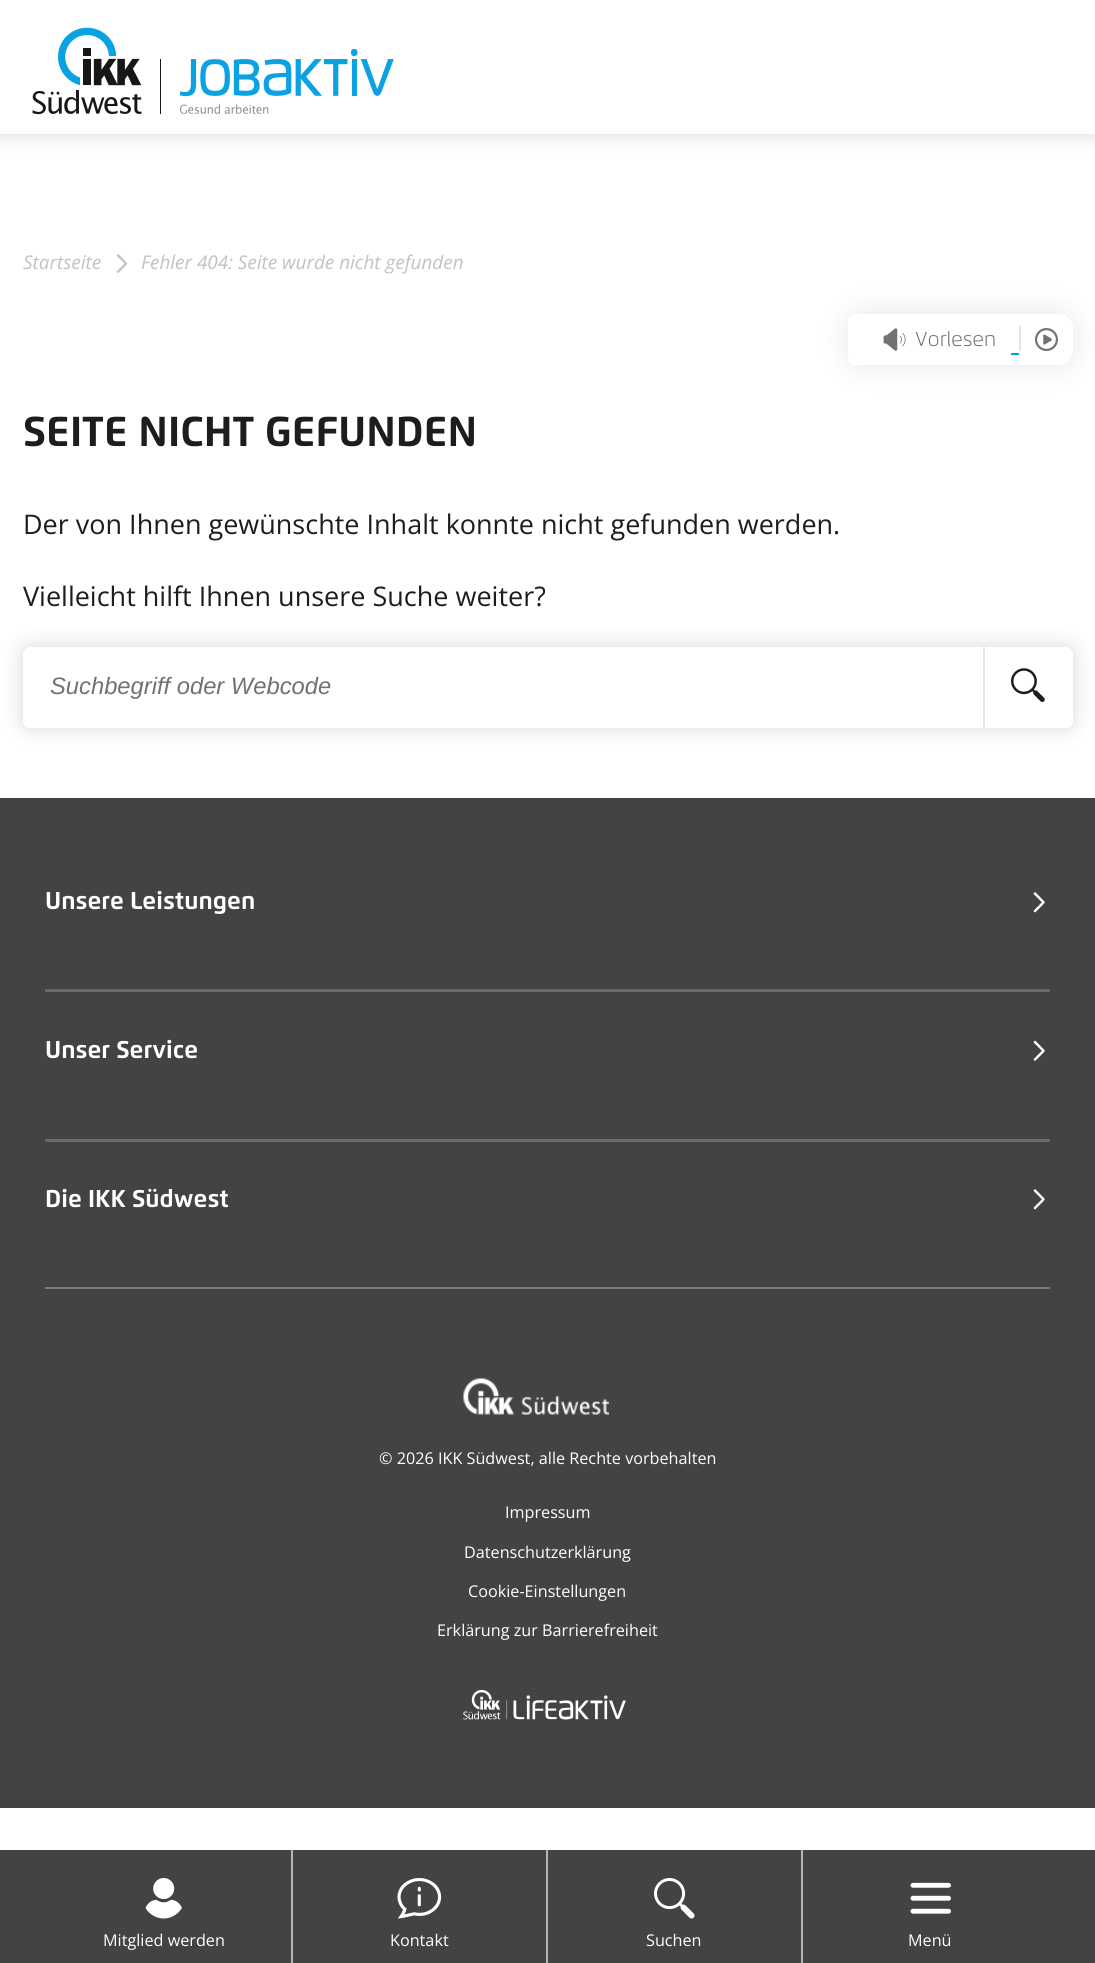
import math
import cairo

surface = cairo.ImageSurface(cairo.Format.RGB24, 1095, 1963)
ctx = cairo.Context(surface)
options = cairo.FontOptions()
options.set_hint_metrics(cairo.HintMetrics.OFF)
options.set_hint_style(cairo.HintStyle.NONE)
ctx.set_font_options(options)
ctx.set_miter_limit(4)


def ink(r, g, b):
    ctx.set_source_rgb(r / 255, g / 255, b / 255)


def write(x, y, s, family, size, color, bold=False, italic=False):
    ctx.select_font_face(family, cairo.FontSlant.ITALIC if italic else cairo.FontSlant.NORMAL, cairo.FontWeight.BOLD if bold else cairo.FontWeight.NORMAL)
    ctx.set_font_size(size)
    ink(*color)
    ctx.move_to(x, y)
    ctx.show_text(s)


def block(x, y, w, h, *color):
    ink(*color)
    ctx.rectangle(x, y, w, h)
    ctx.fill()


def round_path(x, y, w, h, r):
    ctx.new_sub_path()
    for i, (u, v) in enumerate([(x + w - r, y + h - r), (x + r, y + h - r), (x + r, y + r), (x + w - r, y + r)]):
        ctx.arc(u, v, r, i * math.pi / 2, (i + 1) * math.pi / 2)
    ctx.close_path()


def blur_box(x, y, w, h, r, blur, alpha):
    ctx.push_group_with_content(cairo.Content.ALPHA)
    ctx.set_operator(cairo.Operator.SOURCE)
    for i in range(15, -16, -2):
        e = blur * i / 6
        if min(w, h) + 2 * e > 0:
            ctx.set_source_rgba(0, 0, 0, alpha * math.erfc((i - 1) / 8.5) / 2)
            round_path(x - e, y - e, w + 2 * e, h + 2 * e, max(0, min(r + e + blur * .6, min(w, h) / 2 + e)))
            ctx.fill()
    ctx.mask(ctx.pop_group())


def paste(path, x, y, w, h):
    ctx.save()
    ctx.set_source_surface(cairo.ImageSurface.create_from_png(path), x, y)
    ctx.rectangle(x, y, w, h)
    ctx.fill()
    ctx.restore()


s1 = dict(family="Open Sans", size=18.9, color=(193, 193, 193), italic=True)
s2 = dict(family="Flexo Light", size=20.25, color=(114, 114, 114))
s3 = dict(family="Flexo", size=41.8, color=(29, 29, 27), bold=True)
s4 = dict(family="Open Sans", size=27, color=(29, 29, 27))
s5 = dict(family="Liberation Sans", size=23.75, color=(114, 114, 114), italic=True)
s6 = dict(family="Flexo", size=24.25, color=(255, 255, 255), bold=True)
s7 = dict(family="Open Sans", size=16.2, color=(255, 255, 255))

ink(255, 255, 255)
ctx.paint()
write(23, 269, "Startseite", **s1)
paste("pic1.png", 116, 254, 11, 19)
write(141, 269, "Fehler 404: Seite wurde nicht gefunden", **s1)
ctx.save()
ctx.set_fill_rule(cairo.FillRule.EVEN_ODD)
ctx.new_path()
ctx.move_to(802, 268)
ctx.line_to(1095, 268)
ctx.line_to(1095, 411)
ctx.line_to(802, 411)
ctx.close_path()
ctx.move_to(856, 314)
ctx.line_to(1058, 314)
ctx.curve_to(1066.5, 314, 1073, 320.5, 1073, 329)
ctx.line_to(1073, 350)
ctx.curve_to(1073, 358.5, 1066.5, 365, 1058, 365)
ctx.line_to(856, 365)
ctx.curve_to(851.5, 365, 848, 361.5, 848, 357)
ctx.line_to(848, 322)
ctx.curve_to(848, 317.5, 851.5, 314, 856, 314)
ctx.close_path()
ctx.clip()
ink(0, 0, 0)
blur_box(848, 314, 225, 51, 15, 15, 0.1)
ctx.restore()
ink(255, 255, 255)
ctx.new_path()
ctx.move_to(856, 314)
ctx.line_to(1011, 314)
ctx.line_to(1011, 365)
ctx.line_to(856, 365)
ctx.curve_to(851.5, 365, 848, 361.5, 848, 357)
ctx.line_to(848, 322)
ctx.curve_to(848, 317.5, 851.5, 314, 856, 314)
ctx.close_path()
ctx.fill()
paste("pic2.png", 883, 328, 23, 23)
write(915, 346, "Vorlesen", **s2)
ink(255, 255, 255)
ctx.new_path()
ctx.move_to(1019, 326)
ctx.line_to(1065, 326)
ctx.curve_to(1069.5, 326, 1073, 329.5, 1073, 334)
ctx.line_to(1073, 343)
ctx.curve_to(1073, 347.5, 1069.5, 351, 1065, 351)
ctx.line_to(1019, 351)
ctx.close_path()
ctx.fill()
block(1019, 326, 2, 25, 229, 229, 229)
paste("pic3.png", 1035, 328, 23, 23)
block(1011, 353, 8, 2, 0, 159, 227)
write(23, 446, "SEITE NICHT GEFUNDEN", **s3)
write(23, 534, "Der von Ihnen gewünschte Inhalt konnte nicht gefunden werden.", **s4)
write(23, 606, "Vielleicht hilft Ihnen unsere Suche weiter?", **s4)
ink(0, 0, 0)
blur_box(23, 647, 1050, 81, 8, 11, 0.15)
ink(255, 255, 255)
round_path(23, 647, 1050, 81, 8)
ctx.fill()
round_path(23, 647, 960, 81, 8)
ctx.fill()
write(50, 694, "Suchbegriff oder Webcode", **s5)
ink(255, 255, 255)
ctx.new_path()
ctx.move_to(983, 647)
ctx.line_to(1065, 647)
ctx.curve_to(1069.5, 647, 1073, 650.5, 1073, 655)
ctx.line_to(1073, 720)
ctx.curve_to(1073, 724.5, 1069.5, 728, 1065, 728)
ctx.line_to(983, 728)
ctx.close_path()
ctx.fill()
block(983, 647, 2, 81, 229, 229, 229)
paste("pic4.png", 1011, 668, 34, 34)
block(0, 798, 1095, 1010, 67, 67, 67)
write(45, 909, "Unsere Leistungen", **s6)
paste("pic5.png", 1033, 892, 12, 21)
block(45, 989, 1005, 3, 105, 105, 105)
write(45, 1058, "Unser Service", **s6)
paste("pic6.png", 1033, 1040, 12, 21)
block(45, 1139, 1005, 3, 105, 105, 105)
write(45, 1207, "Die IKK Südwest", **s6)
paste("pic5.png", 1033, 1189, 12, 21)
block(45, 1287, 1005, 2, 123, 123, 123)
paste("pic7.png", 463, 1378, 146, 37)
write(379, 1464, "© 2026 IKK Südwest, alle Rechte vorbehalten", **s7)
write(505, 1518, "Impressum", **s7)
write(464, 1558, "Datenschutzerklärung", **s7)
write(468, 1597, "Cookie-Einstellungen", **s7)
write(437, 1636, "Erklärung zur Barrierefreiheit", **s7)
paste("pic8.png", 463, 1689, 163, 31)
ink(0, 0, 0)
blur_box(0, 0, 1095, 134, 0, 11, 0.15)
block(0, 0, 1095, 134, 255, 255, 255)
paste("pic9.png", 32, 27, 362, 88)
block(0, 1850, 1095, 113, 67, 67, 67)
block(291, 1850, 2, 113, 180, 180, 180)
paste("pic10.png", 145, 1878, 37, 41)
write(103, 1946, "Mitglied werden", **s7)
block(546, 1850, 2, 113, 180, 180, 180)
paste("pic11.png", 397, 1878, 45, 41)
write(390, 1946, "Kontakt", **s7)
block(801, 1850, 2, 113, 180, 180, 180)
paste("pic12.png", 654, 1878, 41, 41)
write(646, 1946, "Suchen", **s7)
paste("pic13.png", 910, 1882, 41, 32)
write(908, 1946, "Menü", **s7)
surface.write_to_png("screenshot.png")
